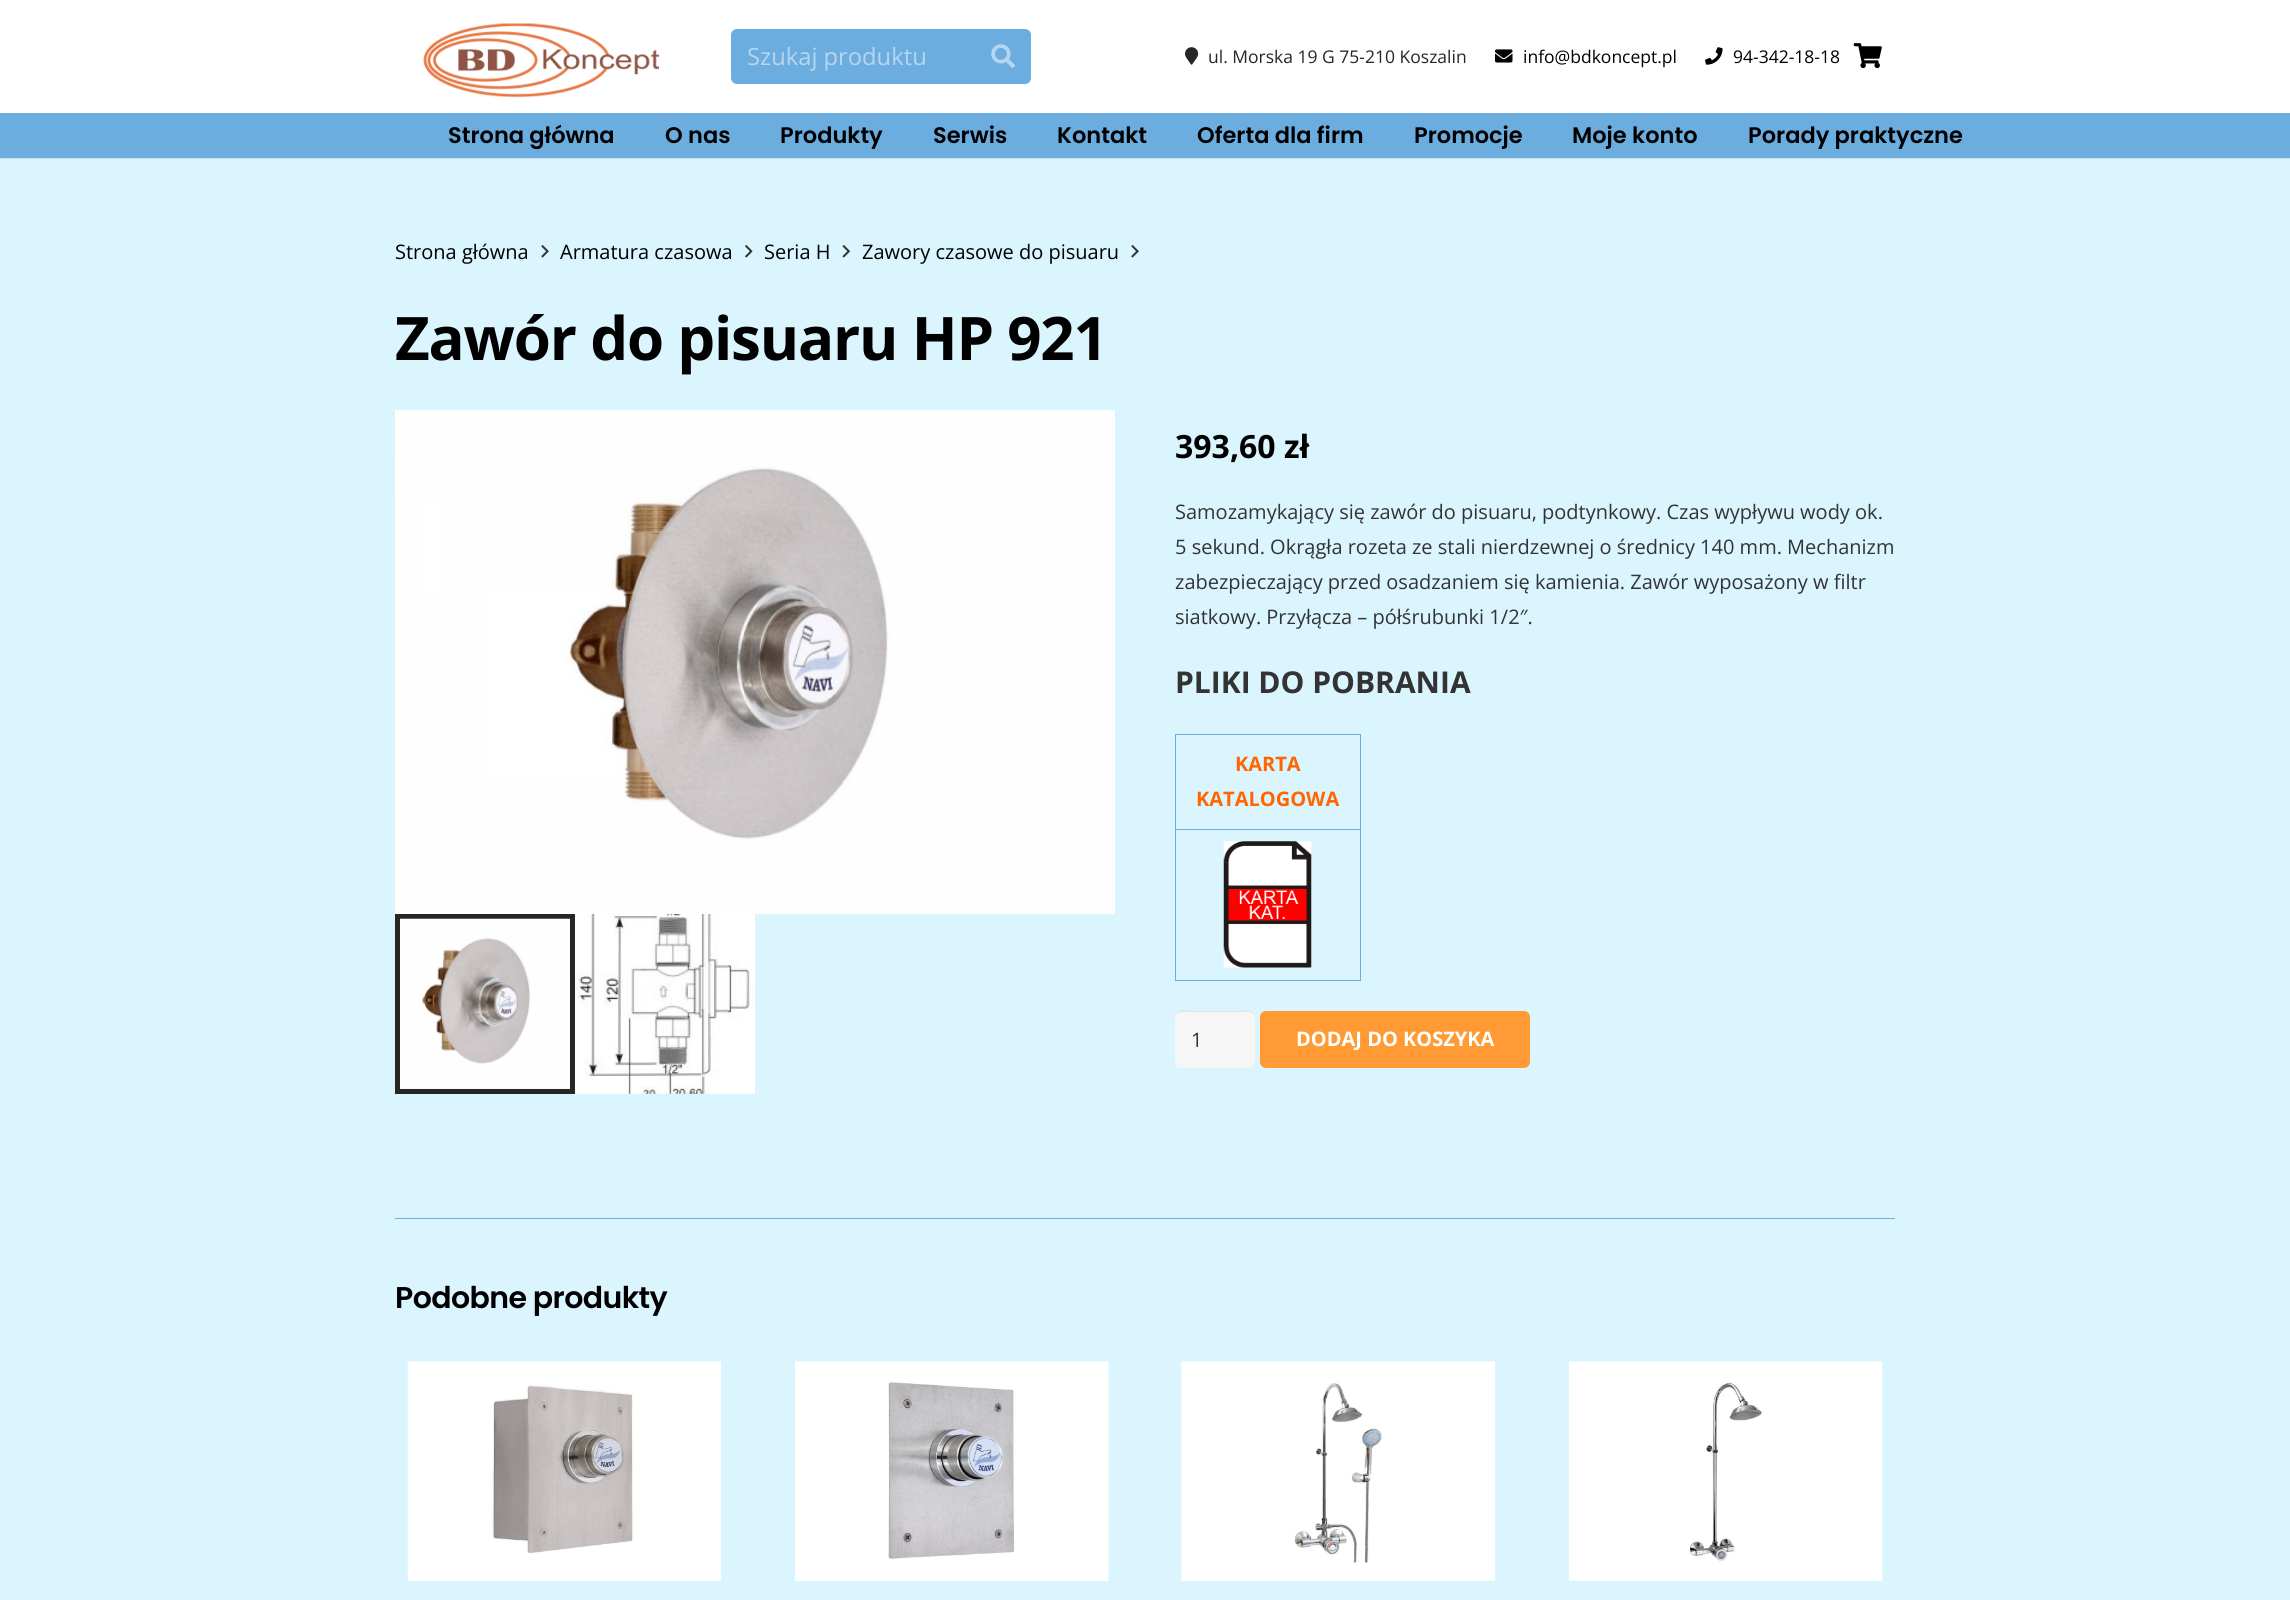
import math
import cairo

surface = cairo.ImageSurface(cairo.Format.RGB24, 2290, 1600)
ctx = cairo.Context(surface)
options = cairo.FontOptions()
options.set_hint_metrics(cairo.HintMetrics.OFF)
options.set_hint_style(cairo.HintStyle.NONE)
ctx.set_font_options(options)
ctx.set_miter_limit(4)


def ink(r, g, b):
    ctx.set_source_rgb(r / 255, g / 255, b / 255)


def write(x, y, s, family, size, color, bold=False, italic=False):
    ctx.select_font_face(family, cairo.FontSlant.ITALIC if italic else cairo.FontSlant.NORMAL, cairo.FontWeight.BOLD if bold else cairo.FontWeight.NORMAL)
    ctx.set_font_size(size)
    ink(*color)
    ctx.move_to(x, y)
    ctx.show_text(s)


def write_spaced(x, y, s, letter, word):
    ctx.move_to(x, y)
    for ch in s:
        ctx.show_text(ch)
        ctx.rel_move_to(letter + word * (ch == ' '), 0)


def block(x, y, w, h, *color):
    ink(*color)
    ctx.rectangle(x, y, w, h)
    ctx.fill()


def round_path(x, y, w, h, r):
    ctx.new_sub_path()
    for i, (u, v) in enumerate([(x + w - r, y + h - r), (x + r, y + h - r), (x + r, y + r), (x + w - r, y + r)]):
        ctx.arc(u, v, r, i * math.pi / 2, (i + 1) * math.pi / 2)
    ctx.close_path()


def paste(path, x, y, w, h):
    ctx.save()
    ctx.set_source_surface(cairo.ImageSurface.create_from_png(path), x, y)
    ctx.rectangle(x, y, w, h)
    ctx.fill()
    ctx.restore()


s1 = dict(family="Open Sans", size=23.75, color=(182, 214, 239))
s2 = dict(family="Open Sans", size=17.5, color=(38, 38, 38))
s3 = dict(family="Open Sans", size=17.5, color=(0, 0, 0))
s4 = dict(family="Poppins SemiBold", size=22.5, color=(0, 0, 0))
s5 = dict(family="Open Sans", size=20, color=(0, 0, 0))
s6 = dict(family="Open Sans", size=32, color=(0, 0, 0), bold=True)
s7 = dict(family="Open Sans", size=20, color=(51, 51, 51))
s8 = dict(family="Open Sans", size=30, color=(51, 51, 51), bold=True)
s9 = dict(family="Open Sans", size=20, color=(255, 102, 0), bold=True)
s10 = dict(family="Open Sans", size=20, color=(255, 255, 255), bold=True)

ink(219, 245, 255)
ctx.paint()
block(0, 0, 2290, 113, 255, 255, 255)
paste("pic1.png", 423, 23, 236, 75)
ink(108, 173, 223)
round_path(731, 29, 300, 55, 6)
ctx.fill()
write(747, 65, "Szukaj produktu", **s1)
paste("pic2.png", 991, 44, 24, 24)
paste("pic3.png", 1185, 47, 14, 18)
write(1208, 63, "ul. Morska 19 G 75-210 Koszalin", **s2)
paste("pic4.png", 1495, 49, 18, 14)
write(1523, 63, "info@bdkoncept.pl", **s3)
paste("pic5.png", 1705, 47, 18, 18)
write(1733, 63, "94-342-18-18", **s3)
paste("pic6.png", 1853, 43, 29, 26)
block(0, 158, 2290, 1, 201, 225, 235)
block(0, 113, 2290, 45, 108, 173, 223)
write(448, 143, "Strona główna", **s4)
write(665, 143, "O nas", **s4)
write(780, 143, "Produkty", **s4)
write(933, 143, "Serwis", **s4)
write(1057, 143, "Kontakt", **s4)
write(1197, 143, "Oferta dla firm", **s4)
write(1414, 143, "Promocje", **s4)
write(1572, 143, "Moje konto", **s4)
write(1748, 143, "Porady praktyczne", **s4)
write(395, 259, "Strona główna", **s5)
paste("pic7.png", 541, 245, 8, 13)
write(560, 259, "Armatura czasowa", **s5)
paste("pic8.png", 745, 245, 8, 13)
write(764, 259, "Seria H", **s5)
paste("pic9.png", 842, 245, 8, 13)
write(862, 259, "Zawory czasowe do pisuaru", **s5)
paste("pic7.png", 1131, 245, 8, 13)
ctx.select_font_face("Open Sans", cairo.FontSlant.NORMAL, cairo.FontWeight.BOLD)
ctx.set_font_size(60)
write_spaced(395, 360, "Zawór do pisuaru HP 921", -1.2, 0)
paste("pic10.png", 395, 410, 720, 504)
ctx.rectangle(397.5, 916.5, 175, 175)
ink(38, 38, 38)
ctx.set_line_width(5)
ctx.stroke()
paste("pic11.png", 400, 918, 170, 171)
paste("pic12.png", 575, 914, 180, 180)
write(1175, 458, "393,60 zł", **s6)
write(1175, 519, "Samozamykający się zawór do pisuaru, podtynkowy. Czas wypływu wody ok.", **s7)
write(1175, 554, "5 sekund. Okrągła rozeta ze stali nierdzewnej o średnicy 140 mm. Mechanizm", **s7)
write(1175, 589, "zabezpieczający przed osadzaniem się kamienia. Zawór wyposażony w filtr", **s7)
write(1175, 624, "siatkowy. Przyłącza – półśrubunki 1/2″.", **s7)
write(1175, 693, "PLIKI DO POBRANIA", **s8)
block(1175, 734, 186, 1, 108, 173, 223)
block(1175, 829, 186, 1, 108, 173, 223)
block(1360, 829, 1, 152, 108, 173, 223)
block(1360, 734, 1, 96, 108, 173, 223)
block(1175, 980, 186, 1, 108, 173, 223)
block(1175, 829, 1, 152, 108, 173, 223)
block(1175, 734, 1, 96, 108, 173, 223)
write(1235, 771, "KARTA", **s9)
write(1196, 806, "KATALOGOWA", **s9)
paste("pic13.png", 1223, 841, 89, 127)
ink(246, 246, 246)
round_path(1175, 1011, 80, 57, 6)
ctx.fill()
ctx.set_source_rgba(0, 0, 0, 0.08)
ctx.new_path()
ctx.move_to(1181, 1012)
ctx.line_to(1249, 1012)
ctx.curve_to(1252, 1012, 1255, 1015, 1255, 1018)
ctx.curve_to(1255, 1008, 1244, 1011, 1238, 1011)
ctx.line_to(1192, 1011)
ctx.curve_to(1186, 1011, 1175, 1008, 1175, 1018)
ctx.curve_to(1175, 1015, 1178, 1012, 1181, 1012)
ctx.close_path()
ctx.fill()
write(1191, 1047, "1", **s7)
ink(255, 154, 52)
round_path(1260, 1011, 270, 57, 6)
ctx.fill()
write(1296, 1046, "DODAJ DO KOSZYKA", **s10)
block(395, 1218, 1500, 1, 108, 173, 223)
ctx.select_font_face("Poppins SemiBold")
ctx.set_font_size(30)
ink(0, 0, 0)
write_spaced(395, 1308, "Podobne produkty", -0.6, 0)
paste("pic14.png", 407, 1361, 314, 220)
paste("pic15.png", 795, 1361, 314, 220)
paste("pic16.png", 1181, 1361, 314, 220)
paste("pic17.png", 1569, 1361, 314, 220)
surface.write_to_png("screenshot.png")
